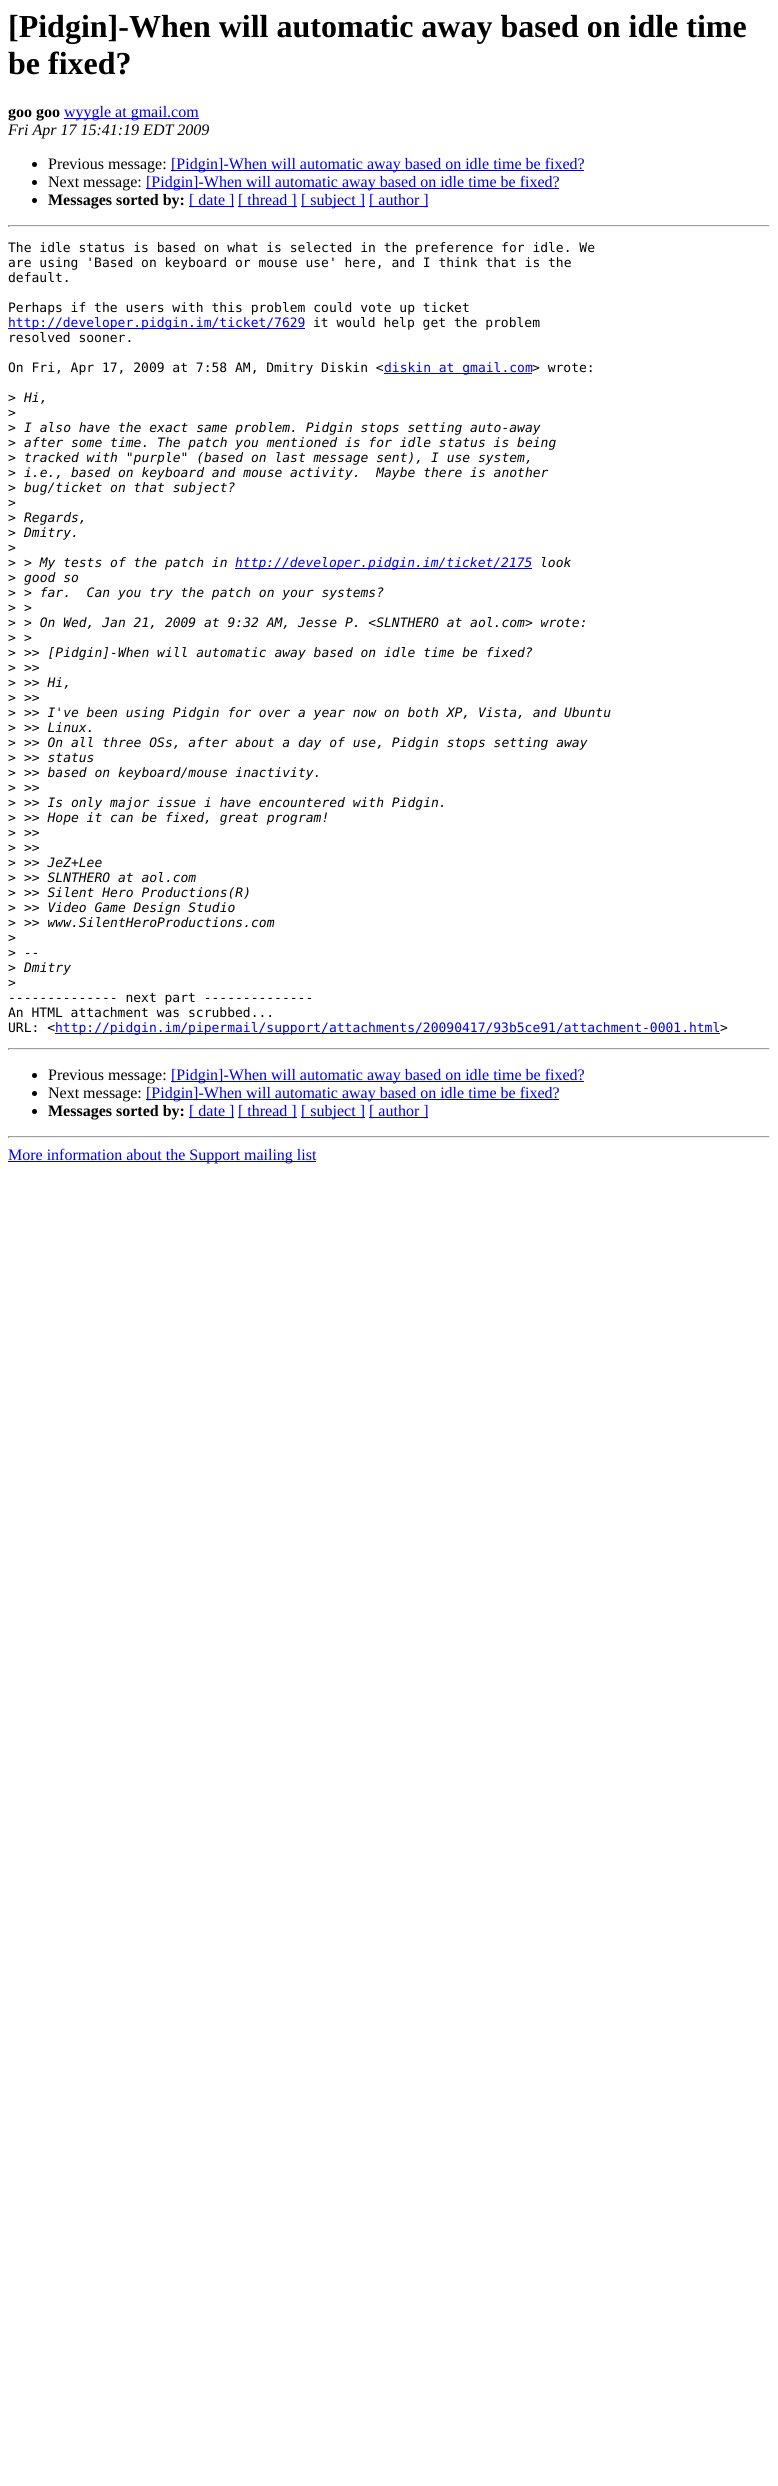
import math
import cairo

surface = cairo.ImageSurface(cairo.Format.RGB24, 778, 2486)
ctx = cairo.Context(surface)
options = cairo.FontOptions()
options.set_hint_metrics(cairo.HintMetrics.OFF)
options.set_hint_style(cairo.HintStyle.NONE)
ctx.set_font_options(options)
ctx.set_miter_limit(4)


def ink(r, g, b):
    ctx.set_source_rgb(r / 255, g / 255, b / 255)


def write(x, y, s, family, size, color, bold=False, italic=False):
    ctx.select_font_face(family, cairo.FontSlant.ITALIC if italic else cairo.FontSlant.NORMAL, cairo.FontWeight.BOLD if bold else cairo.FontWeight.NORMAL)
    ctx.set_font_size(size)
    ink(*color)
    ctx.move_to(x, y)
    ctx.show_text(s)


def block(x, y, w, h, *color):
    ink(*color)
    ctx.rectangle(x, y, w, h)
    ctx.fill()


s1 = dict(family="Liberation Serif", size=32, color=(0, 0, 0), bold=True)
s2 = dict(family="Liberation Serif", size=16, color=(0, 0, 0), bold=True)
s3 = dict(family="Liberation Serif", size=16, color=(0, 0, 238))
s4 = dict(family="Liberation Serif", size=16, color=(0, 0, 0), italic=True)
s5 = dict(family="Liberation Serif", size=16, color=(0, 0, 0))
s6 = dict(family="DejaVu Sans Mono", size=13, color=(0, 0, 0))
s7 = dict(family="DejaVu Sans Mono", size=13, color=(0, 0, 238))
s8 = dict(family="DejaVu Sans Mono", size=13, color=(0, 0, 0), italic=True)
s9 = dict(family="DejaVu Sans Mono", size=13, color=(0, 0, 238), italic=True)

ink(255, 255, 255)
ctx.paint()
write(8, 37, "[Pidgin]-When will automatic away based on idle time", **s1)
write(8, 74, "be fixed?", **s1)
write(8, 117, "goo goo", **s2)
block(64, 118, 135, 1, 0, 0, 238)
write(64, 117, "wyygle at gmail.com", **s3)
write(8, 135, "Fri Apr 17 15:41:19 EDT 2009", **s4)
ctx.new_path()
ctx.arc(34.5, 164.5, 2.5, 0, 2 * math.pi)
ctx.fill()
write(48, 169, "Previous message:", **s5)
block(171, 170, 413, 1, 0, 0, 238)
write(171, 169, "[Pidgin]-When will automatic away based on idle time be fixed?", **s3)
ink(0, 0, 0)
ctx.new_path()
ctx.arc(34.5, 182.5, 2.5, 0, 2 * math.pi)
ctx.fill()
write(48, 187, "Next message:", **s5)
block(146, 188, 413, 1, 0, 0, 238)
write(146, 187, "[Pidgin]-When will automatic away based on idle time be fixed?", **s3)
ink(0, 0, 0)
ctx.new_path()
ctx.arc(34.5, 200.5, 2.5, 0, 2 * math.pi)
ctx.fill()
write(48, 205, "Messages sorted by:", **s2)
block(189, 206, 45, 1, 0, 0, 238)
write(189, 205, "[ date ]", **s3)
block(238, 206, 59, 1, 0, 0, 238)
write(238, 205, "[ thread ]", **s3)
block(301, 206, 64, 1, 0, 0, 238)
write(301, 205, "[ subject ]", **s3)
block(369, 206, 59, 1, 0, 0, 238)
write(369, 205, "[ author ]", **s3)
block(8, 225, 762, 1, 159, 159, 159)
block(769, 225, 1, 2, 238, 238, 238)
block(8, 226, 762, 1, 238, 238, 238)
block(8, 225, 1, 2, 159, 159, 159)
write(8, 252, "The idle status is based on what is selected in the preference for idle. We", **s6)
write(8, 267, "are using 'Based on keyboard or mouse use' here, and I think that is the", **s6)
write(8, 282, "default.", **s6)
write(8, 312, "Perhaps if the users with this problem could vote up ticket", **s6)
block(8, 328, 297, 1, 0, 0, 238)
write(8, 327, "http://developer.pidgin.im/ticket/7629", **s7)
write(313, 327, "it would help get the problem", **s6)
write(8, 342, "resolved sooner.", **s6)
write(8, 372, "On Fri, Apr 17, 2009 at 7:58 AM, Dmitry Diskin <", **s6)
block(384, 373, 148, 1, 0, 0, 238)
write(384, 372, "diskin at gmail.com", **s7)
write(532, 372, "> wrote:", **s6)
write(8, 402, ">", **s6)
write(24, 402, "Hi,", **s8)
write(8, 417, ">", **s6)
write(8, 432, ">", **s6)
write(24, 432, "I also have the exact same problem. Pidgin stops setting auto-away", **s8)
write(8, 447, ">", **s6)
write(24, 447, "after some time. The patch you mentioned is for idle status is being", **s8)
write(8, 462, ">", **s6)
write(24, 462, "tracked with \"purple\" (based on last message sent), I use system,", **s8)
write(8, 477, ">", **s6)
write(24, 477, "i.e., based on keyboard and mouse activity.  Maybe there is another", **s8)
write(8, 492, ">", **s6)
write(24, 492, "bug/ticket on that subject?", **s8)
write(8, 507, ">", **s6)
write(8, 522, ">", **s6)
write(24, 522, "Regards,", **s8)
write(8, 537, ">", **s6)
write(24, 537, "Dmitry.", **s8)
write(8, 552, ">", **s6)
write(8, 567, ">", **s6)
write(24, 567, "> My tests of the patch in", **s8)
block(235, 568, 297, 1, 0, 0, 238)
write(235, 567, "http://developer.pidgin.im/ticket/2175", **s9)
write(540, 567, "look", **s8)
write(8, 582, ">", **s6)
write(24, 582, "good so", **s8)
write(8, 597, ">", **s6)
write(24, 597, "> far.  Can you try the patch on your systems?", **s8)
write(8, 612, ">", **s6)
write(24, 612, ">", **s8)
write(8, 627, ">", **s6)
write(24, 627, "> On Wed, Jan 21, 2009 at 9:32 AM, Jesse P. <SLNTHERO at aol.com> wrote:", **s8)
write(8, 642, ">", **s6)
write(24, 642, ">", **s8)
write(8, 657, ">", **s6)
write(24, 657, ">> [Pidgin]-When will automatic away based on idle time be fixed?", **s8)
write(8, 672, ">", **s6)
write(24, 672, ">>", **s8)
write(8, 687, ">", **s6)
write(24, 687, ">> Hi,", **s8)
write(8, 702, ">", **s6)
write(24, 702, ">>", **s8)
write(8, 717, ">", **s6)
write(24, 717, ">> I've been using Pidgin for over a year now on both XP, Vista, and Ubuntu", **s8)
write(8, 732, ">", **s6)
write(24, 732, ">> Linux.", **s8)
write(8, 747, ">", **s6)
write(24, 747, ">> On all three OSs, after about a day of use, Pidgin stops setting away", **s8)
write(8, 762, ">", **s6)
write(24, 762, ">> status", **s8)
write(8, 777, ">", **s6)
write(24, 777, ">> based on keyboard/mouse inactivity.", **s8)
write(8, 792, ">", **s6)
write(24, 792, ">>", **s8)
write(8, 807, ">", **s6)
write(24, 807, ">> Is only major issue i have encountered with Pidgin.", **s8)
write(8, 822, ">", **s6)
write(24, 822, ">> Hope it can be fixed, great program!", **s8)
write(8, 837, ">", **s6)
write(24, 837, ">>", **s8)
write(8, 852, ">", **s6)
write(24, 852, ">>", **s8)
write(8, 867, ">", **s6)
write(24, 867, ">> JeZ+Lee", **s8)
write(8, 882, ">", **s6)
write(24, 882, ">> SLNTHERO at aol.com", **s8)
write(8, 897, ">", **s6)
write(24, 897, ">> Silent Hero Productions(R)", **s8)
write(8, 912, ">", **s6)
write(24, 912, ">> Video Game Design Studio", **s8)
write(8, 927, ">", **s6)
write(24, 927, ">> www.SilentHeroProductions.com", **s8)
write(8, 942, ">", **s6)
write(8, 957, ">", **s6)
write(24, 957, "--", **s8)
write(8, 972, ">", **s6)
write(24, 972, "Dmitry", **s8)
write(8, 987, ">", **s6)
write(8, 1002, "-------------- next part --------------", **s6)
write(8, 1017, "An HTML attachment was scrubbed...", **s6)
write(8, 1032, "URL: <", **s6)
block(55, 1033, 665, 1, 0, 0, 238)
write(55, 1032, "http://pidgin.im/pipermail/support/attachments/20090417/93b5ce91/attachment-0001.html", **s7)
write(720, 1032, ">", **s6)
block(8, 1048, 762, 1, 159, 159, 159)
block(769, 1048, 1, 2, 238, 238, 238)
block(8, 1049, 762, 1, 238, 238, 238)
block(8, 1048, 1, 2, 159, 159, 159)
ink(0, 0, 0)
ctx.new_path()
ctx.arc(34.5, 1075.5, 2.5, 0, 2 * math.pi)
ctx.fill()
write(48, 1080, "Previous message:", **s5)
block(171, 1081, 413, 1, 0, 0, 238)
write(171, 1080, "[Pidgin]-When will automatic away based on idle time be fixed?", **s3)
ink(0, 0, 0)
ctx.new_path()
ctx.arc(34.5, 1093.5, 2.5, 0, 2 * math.pi)
ctx.fill()
write(48, 1098, "Next message:", **s5)
block(146, 1099, 413, 1, 0, 0, 238)
write(146, 1098, "[Pidgin]-When will automatic away based on idle time be fixed?", **s3)
ink(0, 0, 0)
ctx.new_path()
ctx.arc(34.5, 1111.5, 2.5, 0, 2 * math.pi)
ctx.fill()
write(48, 1116, "Messages sorted by:", **s2)
block(189, 1117, 45, 1, 0, 0, 238)
write(189, 1116, "[ date ]", **s3)
block(238, 1117, 59, 1, 0, 0, 238)
write(238, 1116, "[ thread ]", **s3)
block(301, 1117, 64, 1, 0, 0, 238)
write(301, 1116, "[ subject ]", **s3)
block(369, 1117, 59, 1, 0, 0, 238)
write(369, 1116, "[ author ]", **s3)
block(8, 1136, 762, 1, 159, 159, 159)
block(769, 1136, 1, 2, 238, 238, 238)
block(8, 1137, 762, 1, 238, 238, 238)
block(8, 1136, 1, 2, 159, 159, 159)
block(8, 1161, 308, 1, 0, 0, 238)
write(8, 1160, "More information about the Support mailing list", **s3)
surface.write_to_png("screenshot.png")
